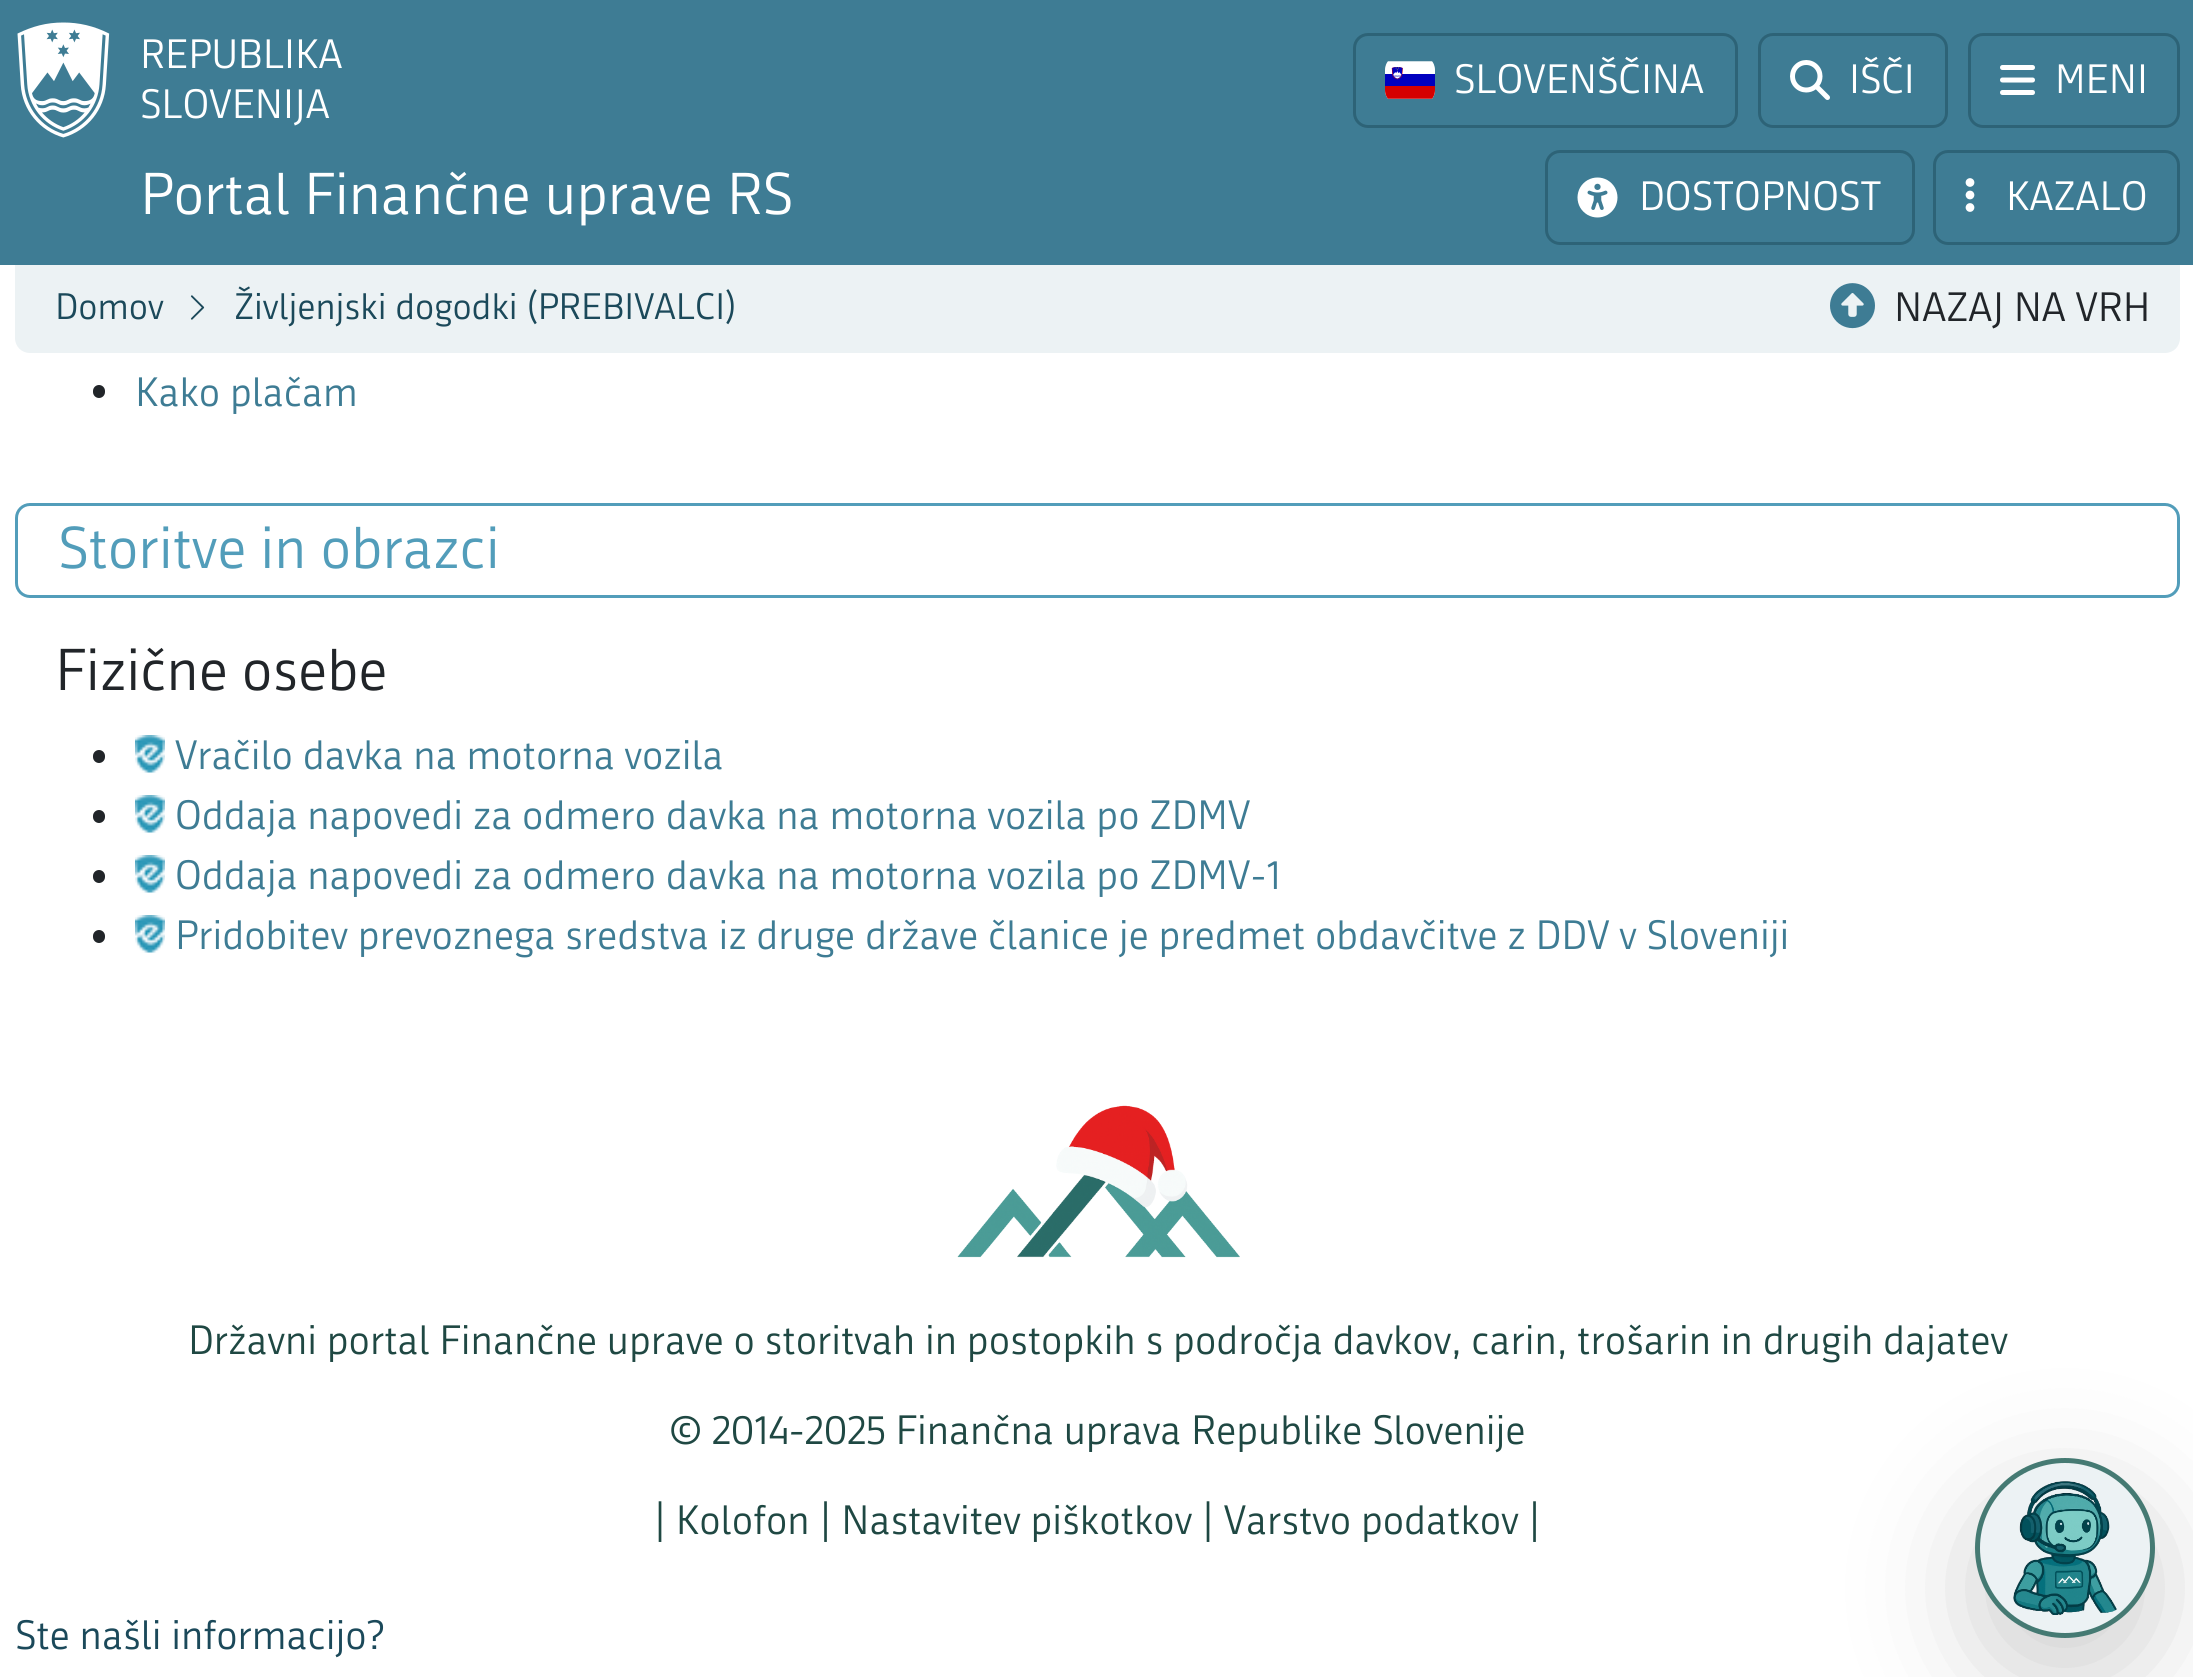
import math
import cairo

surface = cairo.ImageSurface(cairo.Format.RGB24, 2193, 1677)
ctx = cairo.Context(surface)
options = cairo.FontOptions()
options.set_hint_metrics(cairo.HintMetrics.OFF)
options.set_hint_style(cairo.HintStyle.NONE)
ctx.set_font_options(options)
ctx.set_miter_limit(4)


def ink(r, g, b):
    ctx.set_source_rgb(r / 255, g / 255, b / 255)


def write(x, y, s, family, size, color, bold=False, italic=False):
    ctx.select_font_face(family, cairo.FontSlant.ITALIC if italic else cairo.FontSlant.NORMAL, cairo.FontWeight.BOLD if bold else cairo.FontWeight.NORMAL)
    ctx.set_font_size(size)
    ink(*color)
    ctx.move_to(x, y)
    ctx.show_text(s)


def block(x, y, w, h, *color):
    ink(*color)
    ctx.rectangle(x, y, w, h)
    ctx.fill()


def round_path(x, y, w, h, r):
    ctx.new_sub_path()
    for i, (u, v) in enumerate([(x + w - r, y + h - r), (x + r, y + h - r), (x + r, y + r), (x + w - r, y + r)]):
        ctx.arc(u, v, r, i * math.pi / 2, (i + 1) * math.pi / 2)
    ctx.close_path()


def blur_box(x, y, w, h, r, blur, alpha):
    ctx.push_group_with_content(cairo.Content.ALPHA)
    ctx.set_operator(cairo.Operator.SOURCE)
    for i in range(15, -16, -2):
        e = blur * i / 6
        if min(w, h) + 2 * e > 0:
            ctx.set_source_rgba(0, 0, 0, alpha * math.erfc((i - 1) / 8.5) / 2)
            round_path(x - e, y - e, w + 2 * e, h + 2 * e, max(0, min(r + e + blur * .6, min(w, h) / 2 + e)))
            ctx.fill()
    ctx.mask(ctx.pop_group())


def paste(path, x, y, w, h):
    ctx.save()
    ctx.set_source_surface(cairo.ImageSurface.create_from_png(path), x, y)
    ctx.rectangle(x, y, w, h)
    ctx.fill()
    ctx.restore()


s1 = dict(family="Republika", size=40, color=(255, 255, 255))
s2 = dict(family="Republika", size=57.5, color=(255, 255, 255))
s3 = dict(family="Republika", size=36, color=(27, 73, 90))
s4 = dict(family="Republika", size=40, color=(33, 37, 41))
s5 = dict(family="Republika", size=40, color=(62, 124, 148))
s6 = dict(family="Republika", size=57.5, color=(82, 157, 186))
s7 = dict(family="Republika", size=57.5, color=(33, 37, 41))
s8 = dict(family="Republika", size=40, color=(31, 72, 67))
s9 = dict(family="Republika", size=40, color=(27, 73, 90))

ink(255, 255, 255)
ctx.paint()
block(0, 0, 2193, 265, 62, 124, 148)
paste("pic1.png", 17, 22, 93, 116)
write(140, 68, "REPUBLIKA", **s1)
write(140, 118, "SLOVENIJA", **s1)
round_path(1354.5, 34.5, 382, 92, 13.5)
ink(45, 99, 119)
ctx.set_line_width(3)
ctx.stroke()
paste("pic2.png", 1385, 61, 50, 38)
write(1454, 93, "SLOVENŠČINA", **s1)
round_path(1759.5, 34.5, 187, 92, 13.5)
ink(45, 99, 119)
ctx.stroke()
paste("pic3.png", 1790, 60, 40, 40)
write(1849, 93, "IŠČI", **s1)
round_path(1969.5, 34.5, 209, 92, 13.5)
ink(45, 99, 119)
ctx.stroke()
paste("pic4.png", 2000, 65, 35, 30)
write(2055, 93, "MENI", **s1)
write(140, 214, "Portal Finančne uprave RS", **s2)
round_path(1546.5, 151.5, 367, 92, 13.5)
ink(45, 99, 119)
ctx.stroke()
paste("pic5.png", 1577, 177, 41, 41)
write(1639, 210, "DOSTOPNOST", **s1)
round_path(1934.5, 151.5, 244, 92, 13.5)
ink(45, 99, 119)
ctx.stroke()
paste("pic6.png", 1965, 178, 10, 34)
write(2006, 210, "KAZALO", **s1)
ink(236, 242, 244)
ctx.new_path()
ctx.move_to(15, 265)
ctx.line_to(2180, 265)
ctx.line_to(2180, 338)
ctx.curve_to(2180, 346.5, 2173.5, 353, 2165, 353)
ctx.line_to(30, 353)
ctx.curve_to(21.5, 353, 15, 346.5, 15, 338)
ctx.close_path()
ctx.fill()
write(55, 319, "Domov", **s3)
paste("pic7.png", 190, 295, 15, 25)
write(234, 319, "Življenjski dogodki (PREBIVALCI)", **s3)
paste("pic8.png", 1830, 283, 45, 46)
write(1894, 321, "NAZAJ NA VRH", **s4)
round_path(93, 385, 12, 13, 6)
ctx.fill()
write(135, 406, "Kako plačam", **s5)
round_path(16.5, 504.5, 2162, 92, 13.5)
ink(82, 157, 186)
ctx.stroke()
write(58, 568, "Storitve in obrazci", **s6)
write(55, 690, "Fizične osebe", **s7)
round_path(93, 750, 12, 13, 6)
ctx.fill()
paste("pic9.png", 135, 735, 30, 38)
write(175, 769, "Vračilo davka na motorna vozila", **s5)
ink(33, 37, 41)
round_path(93, 810, 12, 13, 6)
ctx.fill()
paste("pic9.png", 135, 795, 30, 38)
write(175, 829, "Oddaja napovedi za odmero davka na motorna vozila po ZDMV", **s5)
ink(33, 37, 41)
round_path(93, 870, 12, 13, 6)
ctx.fill()
paste("pic9.png", 135, 855, 30, 38)
write(175, 889, "Oddaja napovedi za odmero davka na motorna vozila po ZDMV-1", **s5)
ink(33, 37, 41)
round_path(93, 930, 12, 13, 6)
ctx.fill()
paste("pic9.png", 135, 915, 30, 38)
write(175, 949, "Pridobitev prevoznega sredstva iz druge države članice je predmet obdavčitve z DDV v Sloveniji", **s5)
ink(0, 0, 0)
blur_box(1975, 1498, 180, 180, 90, 60, 0.18)
ink(236, 242, 244)
ctx.arc(2065, 1548, 87.5, 0, 2 * math.pi)
ctx.fill_preserve()
ink(69, 122, 115)
ctx.set_line_width(5)
ctx.stroke()
paste("pic10.png", 2013, 1481, 104, 134)
paste("pic11.png", 957, 1105, 283, 153)
write(188, 1354, "Državni portal Finančne uprave o storitvah in postopkih s področja davkov, carin, trošarin in drugih dajatev", **s8)
write(669, 1444, "© 2014-2025 Finančna uprava Republike Slovenije", **s8)
write(654, 1534, "| Kolofon | Nastavitev piškotkov | Varstvo podatkov |", **s8)
write(15, 1649, "Ste našli informacijo?", **s9)
surface.write_to_png("screenshot.png")
